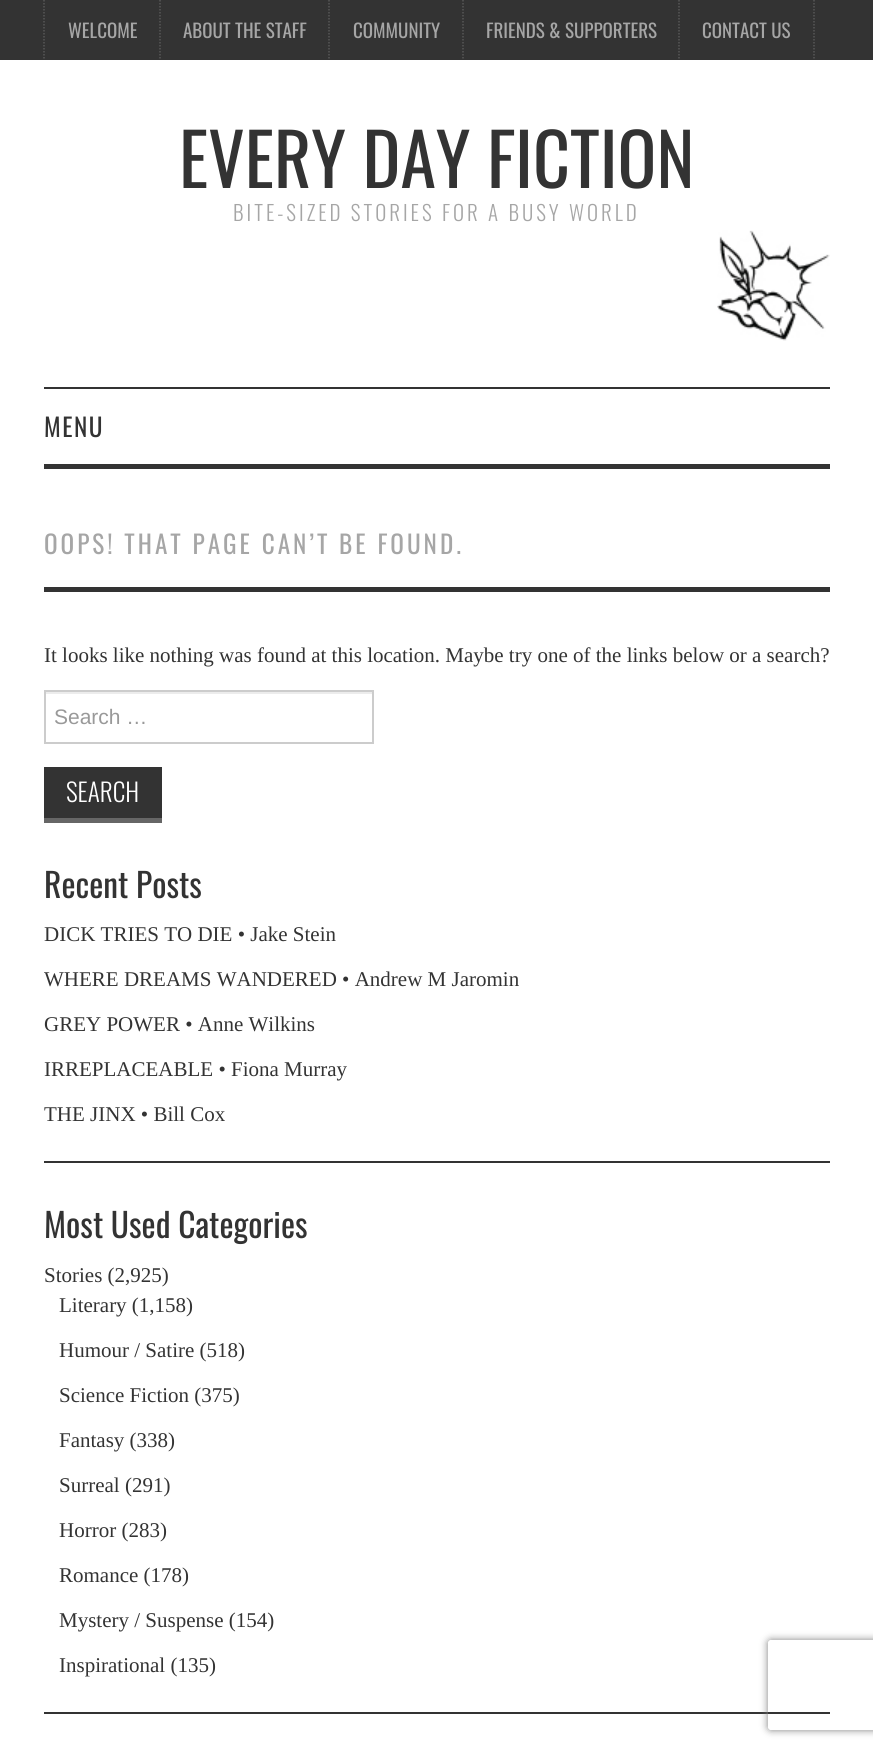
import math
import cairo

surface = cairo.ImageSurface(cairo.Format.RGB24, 873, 1750)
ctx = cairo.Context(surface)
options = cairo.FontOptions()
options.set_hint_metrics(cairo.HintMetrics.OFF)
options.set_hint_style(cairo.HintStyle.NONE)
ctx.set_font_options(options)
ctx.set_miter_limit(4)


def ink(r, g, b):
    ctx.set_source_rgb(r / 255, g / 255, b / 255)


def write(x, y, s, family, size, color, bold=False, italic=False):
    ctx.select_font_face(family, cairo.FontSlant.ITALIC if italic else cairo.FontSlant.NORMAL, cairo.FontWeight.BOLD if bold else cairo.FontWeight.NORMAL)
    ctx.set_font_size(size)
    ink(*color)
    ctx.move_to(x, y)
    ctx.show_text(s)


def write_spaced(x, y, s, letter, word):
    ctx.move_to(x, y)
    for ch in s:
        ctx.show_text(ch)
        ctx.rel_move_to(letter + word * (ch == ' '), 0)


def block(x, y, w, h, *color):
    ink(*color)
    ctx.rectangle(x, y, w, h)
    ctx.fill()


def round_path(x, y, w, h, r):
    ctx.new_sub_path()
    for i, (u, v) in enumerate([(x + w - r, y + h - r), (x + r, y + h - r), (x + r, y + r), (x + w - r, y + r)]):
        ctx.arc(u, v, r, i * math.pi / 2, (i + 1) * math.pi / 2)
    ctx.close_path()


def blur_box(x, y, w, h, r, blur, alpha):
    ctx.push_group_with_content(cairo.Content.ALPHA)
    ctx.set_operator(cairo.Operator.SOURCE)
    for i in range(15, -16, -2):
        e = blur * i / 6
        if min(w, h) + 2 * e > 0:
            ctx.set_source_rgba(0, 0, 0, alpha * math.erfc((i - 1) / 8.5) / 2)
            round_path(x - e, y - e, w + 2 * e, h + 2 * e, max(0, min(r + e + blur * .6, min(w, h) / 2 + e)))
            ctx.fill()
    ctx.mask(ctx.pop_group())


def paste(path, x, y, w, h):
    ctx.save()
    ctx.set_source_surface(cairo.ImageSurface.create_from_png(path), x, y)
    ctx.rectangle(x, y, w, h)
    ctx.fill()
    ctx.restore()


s1 = dict(family="Oswald", size=19, color=(166, 166, 166))
s2 = dict(family="Oswald", size=72, color=(51, 51, 51))
s3 = dict(family="Liberation Serif", size=21, color=(51, 51, 51))
s4 = dict(family="Liberation Sans", size=21, color=(153, 153, 153))
s5 = dict(family="Oswald Light", size=25.25, color=(255, 255, 255))
s6 = dict(family="Oswald", size=33.5, color=(51, 51, 51))

ink(255, 255, 255)
ctx.paint()
block(0, 0, 873, 60, 51, 51, 51)
ctx.new_path()
ctx.move_to(44, 0)
ctx.line_to(44, 60)
ink(86, 86, 86)
ctx.set_line_width(1.5)
ctx.set_dash([1.5, 1.5])
ctx.stroke()
ctx.new_path()
ctx.move_to(160, 0)
ctx.line_to(160, 60)
ctx.stroke()
write(68, 38, "WELCOME", **s1)
ctx.new_path()
ctx.move_to(329, 0)
ctx.line_to(329, 60)
ink(86, 86, 86)
ctx.stroke()
write(183, 38, "ABOUT THE STAFF", **s1)
ctx.new_path()
ctx.move_to(463, 0)
ctx.line_to(463, 60)
ink(86, 86, 86)
ctx.stroke()
write(353, 38, "COMMUNITY", **s1)
ctx.new_path()
ctx.move_to(679, 0)
ctx.line_to(679, 60)
ink(86, 86, 86)
ctx.stroke()
write(486, 38, "FRIENDS & SUPPORTERS", **s1)
ctx.new_path()
ctx.move_to(814, 0)
ctx.line_to(814, 60)
ink(86, 86, 86)
ctx.stroke()
write(702, 38, "CONTACT US", **s1)
write(179, 188, "EVERY DAY FICTION", **s2)
ctx.select_font_face("Oswald Light")
ctx.set_font_size(21)
ink(166, 166, 166)
write_spaced(233, 221, "BITE-SIZED STORIES FOR A BUSY WORLD", 3, 0)
paste("pic1.png", 717, 230, 113, 111)
block(44, 387, 786, 2, 51, 51, 51)
block(44, 464, 786, 5, 51, 51, 51)
ctx.select_font_face("Oswald")
ctx.set_font_size(25.25)
write_spaced(44, 437, "MENU", 1.5, 0)
block(44, 587, 786, 5, 51, 51, 51)
ink(166, 166, 166)
write_spaced(44, 554, "OOPS! THAT PAGE CAN’T BE FOUND.", 3, 0)
write(44, 662, "It looks like nothing was found at this location. Maybe try one of the links below or a search?", **s3)
block(45, 692, 327, 2, 236, 236, 236)
ctx.rectangle(45, 691, 328, 52)
ink(204, 204, 204)
ctx.set_line_width(2)
ctx.set_dash([])
ctx.stroke()
write(54, 724, "Search …", **s4)
block(44, 767, 118, 51, 51, 51, 51)
block(44, 818, 118, 5, 102, 102, 102)
write(66, 802, "SEARCH", **s5)
block(44, 1161, 786, 2, 51, 51, 51)
write(44, 898, "Recent Posts", **s6)
write(44, 941, "DICK TRIES TO DIE • Jake Stein", **s3)
write(44, 986, "WHERE DREAMS WANDERED • Andrew M Jaromin", **s3)
write(44, 1031, "GREY POWER • Anne Wilkins", **s3)
write(44, 1076, "IRREPLACEABLE • Fiona Murray", **s3)
write(44, 1121, "THE JINX • Bill Cox", **s3)
block(44, 1712, 786, 2, 51, 51, 51)
write(44, 1238, "Most Used Categories", **s6)
write(44, 1282, "Stories (2,925)", **s3)
write(59, 1312, "Literary (1,158)", **s3)
write(59, 1357, "Humour / Satire (518)", **s3)
write(59, 1402, "Science Fiction (375)", **s3)
write(59, 1447, "Fantasy (338)", **s3)
write(59, 1492, "Surreal (291)", **s3)
write(59, 1537, "Horror (283)", **s3)
write(59, 1582, "Romance (178)", **s3)
write(59, 1627, "Mystery / Suspense (154)", **s3)
write(59, 1672, "Inspirational (135)", **s3)
ctx.save()
ctx.set_fill_rule(cairo.FillRule.EVEN_ODD)
ctx.new_path()
ctx.move_to(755, 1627)
ctx.line_to(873, 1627)
ctx.line_to(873, 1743)
ctx.line_to(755, 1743)
ctx.close_path()
ctx.move_to(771, 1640)
ctx.line_to(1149, 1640)
ctx.curve_to(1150.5, 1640, 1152, 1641.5, 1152, 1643)
ctx.line_to(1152, 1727)
ctx.curve_to(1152, 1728.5, 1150.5, 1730, 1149, 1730)
ctx.line_to(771, 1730)
ctx.curve_to(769.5, 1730, 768, 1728.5, 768, 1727)
ctx.line_to(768, 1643)
ctx.curve_to(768, 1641.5, 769.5, 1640, 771, 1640)
ctx.close_path()
ctx.clip()
ink(128, 128, 128)
blur_box(768, 1640, 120, 90, 3, 4, 1)
ctx.restore()
surface.write_to_png("screenshot.png")
